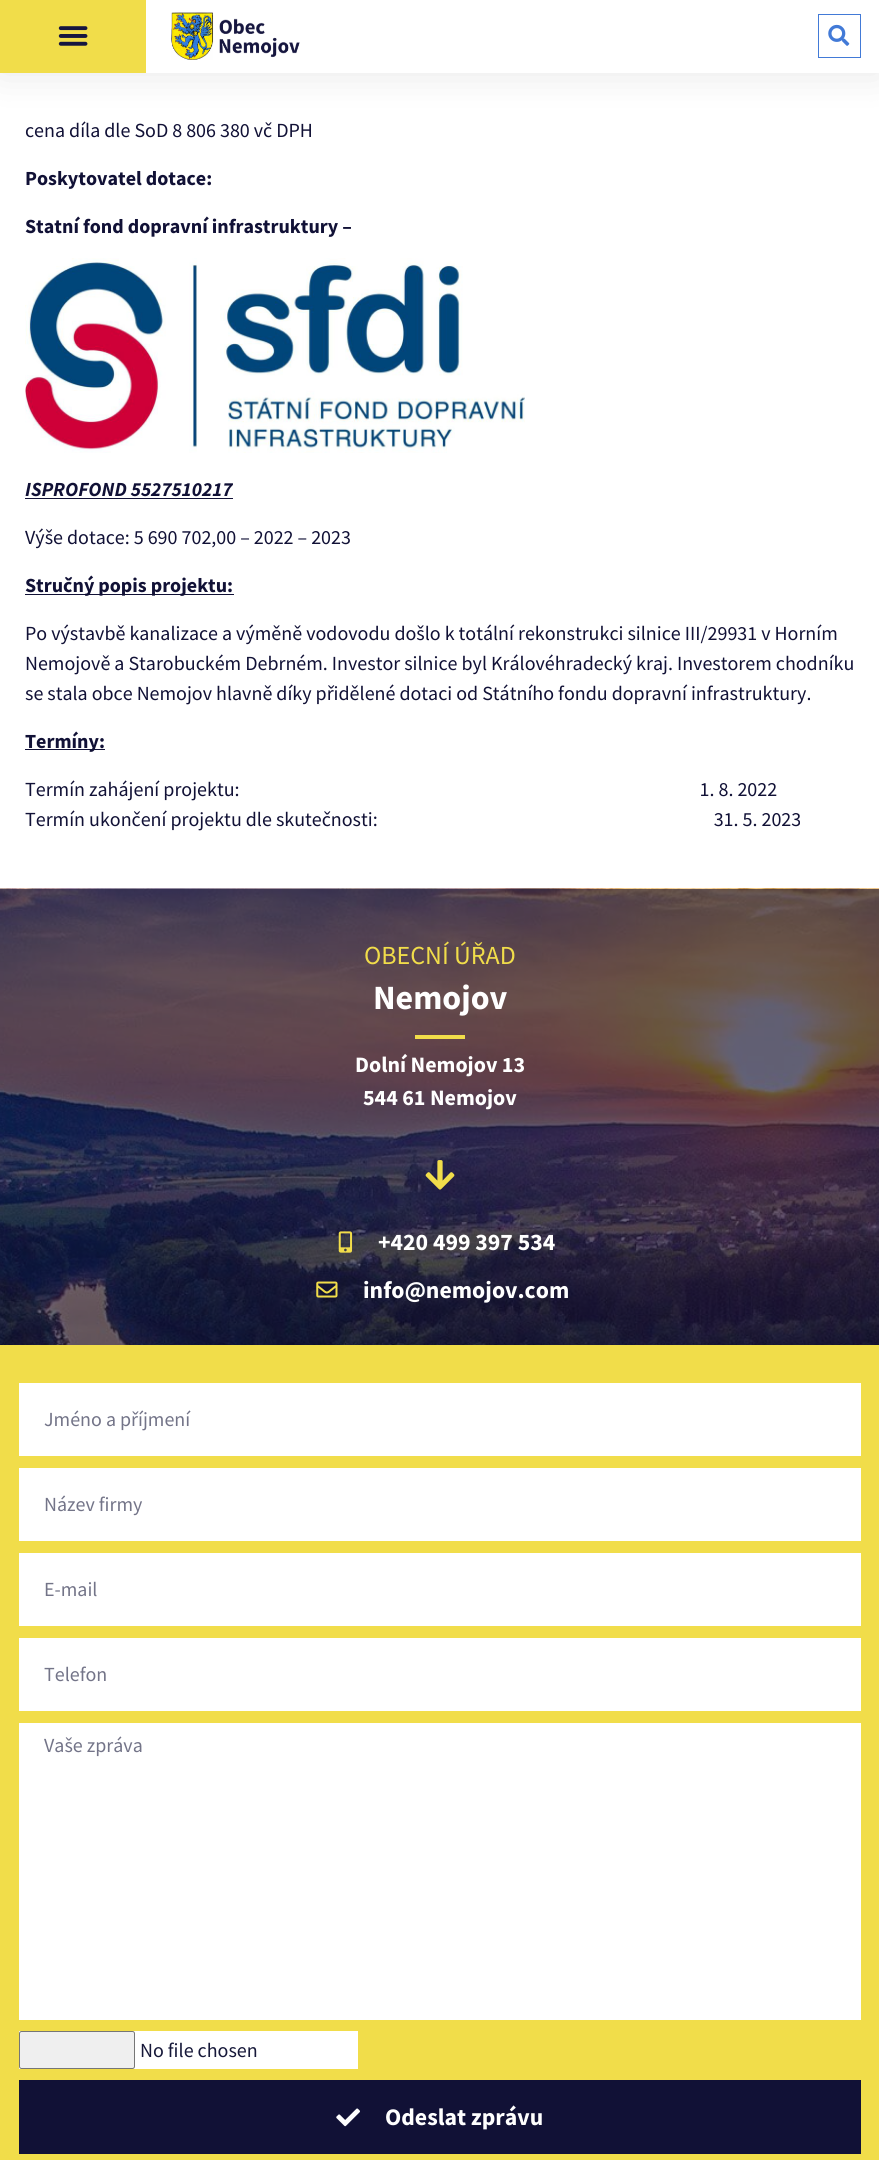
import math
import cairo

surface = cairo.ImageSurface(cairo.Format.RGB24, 879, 2160)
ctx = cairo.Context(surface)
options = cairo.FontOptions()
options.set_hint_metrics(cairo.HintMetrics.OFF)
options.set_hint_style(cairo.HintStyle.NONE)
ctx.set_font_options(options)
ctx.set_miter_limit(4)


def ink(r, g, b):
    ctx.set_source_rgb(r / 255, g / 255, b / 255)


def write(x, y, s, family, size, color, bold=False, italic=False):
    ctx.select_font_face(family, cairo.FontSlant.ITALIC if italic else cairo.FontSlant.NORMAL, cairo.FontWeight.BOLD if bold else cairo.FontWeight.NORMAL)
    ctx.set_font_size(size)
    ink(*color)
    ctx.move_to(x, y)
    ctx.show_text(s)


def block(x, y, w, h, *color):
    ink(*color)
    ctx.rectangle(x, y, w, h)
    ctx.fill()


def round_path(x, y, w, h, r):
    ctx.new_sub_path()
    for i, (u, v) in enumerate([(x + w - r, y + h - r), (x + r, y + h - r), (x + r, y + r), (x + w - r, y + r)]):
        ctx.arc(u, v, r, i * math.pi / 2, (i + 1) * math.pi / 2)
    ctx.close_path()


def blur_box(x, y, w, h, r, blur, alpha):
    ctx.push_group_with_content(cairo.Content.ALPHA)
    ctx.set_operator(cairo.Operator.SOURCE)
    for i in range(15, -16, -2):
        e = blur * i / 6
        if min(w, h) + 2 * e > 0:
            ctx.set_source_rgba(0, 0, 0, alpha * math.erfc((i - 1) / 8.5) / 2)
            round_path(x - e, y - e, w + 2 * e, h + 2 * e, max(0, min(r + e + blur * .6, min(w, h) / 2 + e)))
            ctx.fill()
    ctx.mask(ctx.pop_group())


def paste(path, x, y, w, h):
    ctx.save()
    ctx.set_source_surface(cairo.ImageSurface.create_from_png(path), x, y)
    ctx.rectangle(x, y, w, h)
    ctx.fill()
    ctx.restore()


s1 = dict(family="Source Sans Pro", size=20, color=(17, 17, 54))
s2 = dict(family="Source Sans Pro", size=20, color=(17, 17, 54), bold=True)
s3 = dict(family="Source Sans Pro", size=20, color=(17, 17, 54), bold=True, italic=True)
s4 = dict(family="Source Sans Pro", size=26, color=(241, 221, 74))
s5 = dict(family="Source Sans Pro", size=34, color=(255, 255, 255), bold=True)
s6 = dict(family="Source Sans Pro", size=22, color=(255, 255, 255), bold=True)
s7 = dict(family="Source Sans Pro", size=23.75, color=(255, 255, 255), bold=True)
s8 = dict(family="Source Sans Pro", size=20, color=(115, 116, 136))
s9 = dict(family="Source Sans Pro", size=20, color=(22, 24, 57))

ink(255, 255, 255)
ctx.paint()
ink(0, 0, 0)
blur_box(0, 0, 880, 73, 0, 19, 0.1)
block(146, 0, 733, 73, 255, 255, 255)
block(0, 0, 146, 73, 241, 221, 74)
paste("pic1.png", 58, 26, 30, 20)
paste("pic2.png", 171, 12, 129, 48)
ctx.rectangle(818.5, 14.5, 42, 43)
ink(66, 122, 215)
ctx.set_line_width(1)
ctx.stroke()
paste("pic3.png", 828, 24, 22, 22)
write(25, 137, "cena díla dle SoD 8 806 380 vč DPH", **s1)
write(25, 185, "Poskytovatel dotace:", **s2)
write(25, 233, "Statní fond dopravní infrastruktury –", **s2)
paste("pic4.png", 25, 258, 500, 195)
write(25, 496, "ISPROFOND 5527510217", **s3)
block(25, 498, 208, 1, 17, 17, 54)
write(25, 544, "Výše dotace: 5 690 702,00 – 2022 – 2023", **s1)
block(25, 594, 209, 1, 17, 17, 54)
write(25, 592, "Stručný popis projektu:", **s2)
write(25, 640, "Po výstavbě kanalizace a výměně vodovodu došlo k totální rekonstrukci silnice III/29931 v Horním", **s1)
write(25, 670, "Nemojově a Starobuckém Debrném. Investor silnice byl Královéhradecký kraj. Investorem chodníku", **s1)
write(25, 700, "se stala obce Nemojov hlavně díky přidělené dotaci od Státního fondu dopravní infrastruktury.", **s1)
block(25, 749, 80, 1, 17, 17, 54)
write(25, 748, "Termíny:", **s2)
write(25, 796, "Termín zahájení projektu:                                                                                                                   1. 8. 2022", **s1)
write(25, 826, "Termín ukončení projektu dle skutečnosti:                                                                                    31. 5. 2023", **s1)
paste("pic5.png", 0, 888, 879, 457)
write(364, 964, "OBECNÍ ÚŘAD", **s4)
write(373, 1009, "Nemojov", **s5)
block(415, 1035, 50, 4, 241, 221, 74)
write(355, 1072, "Dolní Nemojov 13", **s6)
write(363, 1105, "544 61 Nemojov", **s6)
paste("pic6.png", 425, 1160, 30, 30)
paste("pic7.png", 338, 1231, 15, 22)
write(378, 1250, "+420 499 397 534", **s7)
paste("pic8.png", 316, 1281, 22, 17)
write(363, 1298, "info@nemojov.com", **s7)
block(0, 1345, 879, 815, 241, 221, 74)
block(19, 1383, 842, 73, 255, 255, 255)
write(44, 1426, "Jméno a příjmení", **s8)
block(19, 1468, 842, 73, 255, 255, 255)
write(44, 1511, "Název firmy", **s8)
block(19, 1553, 842, 73, 255, 255, 255)
write(44, 1596, "E-mail", **s8)
block(19, 1638, 842, 73, 255, 255, 255)
write(44, 1681, "Telefon", **s8)
block(19, 1723, 842, 297, 255, 255, 255)
write(44, 1752, "Vaše zpráva", **s8)
block(19, 2031, 339, 38, 255, 255, 255)
ink(239, 239, 239)
round_path(19.5, 2031.5, 115, 37, 2)
ctx.fill_preserve()
ink(118, 118, 118)
ctx.stroke()
write(140, 2057, "No file chosen", **s9)
block(19, 2080, 842, 74, 17, 17, 54)
paste("pic9.png", 336, 2108, 24, 19)
write(385, 2125, "Odeslat zprávu", **s7)
surface.write_to_png("screenshot.png")
